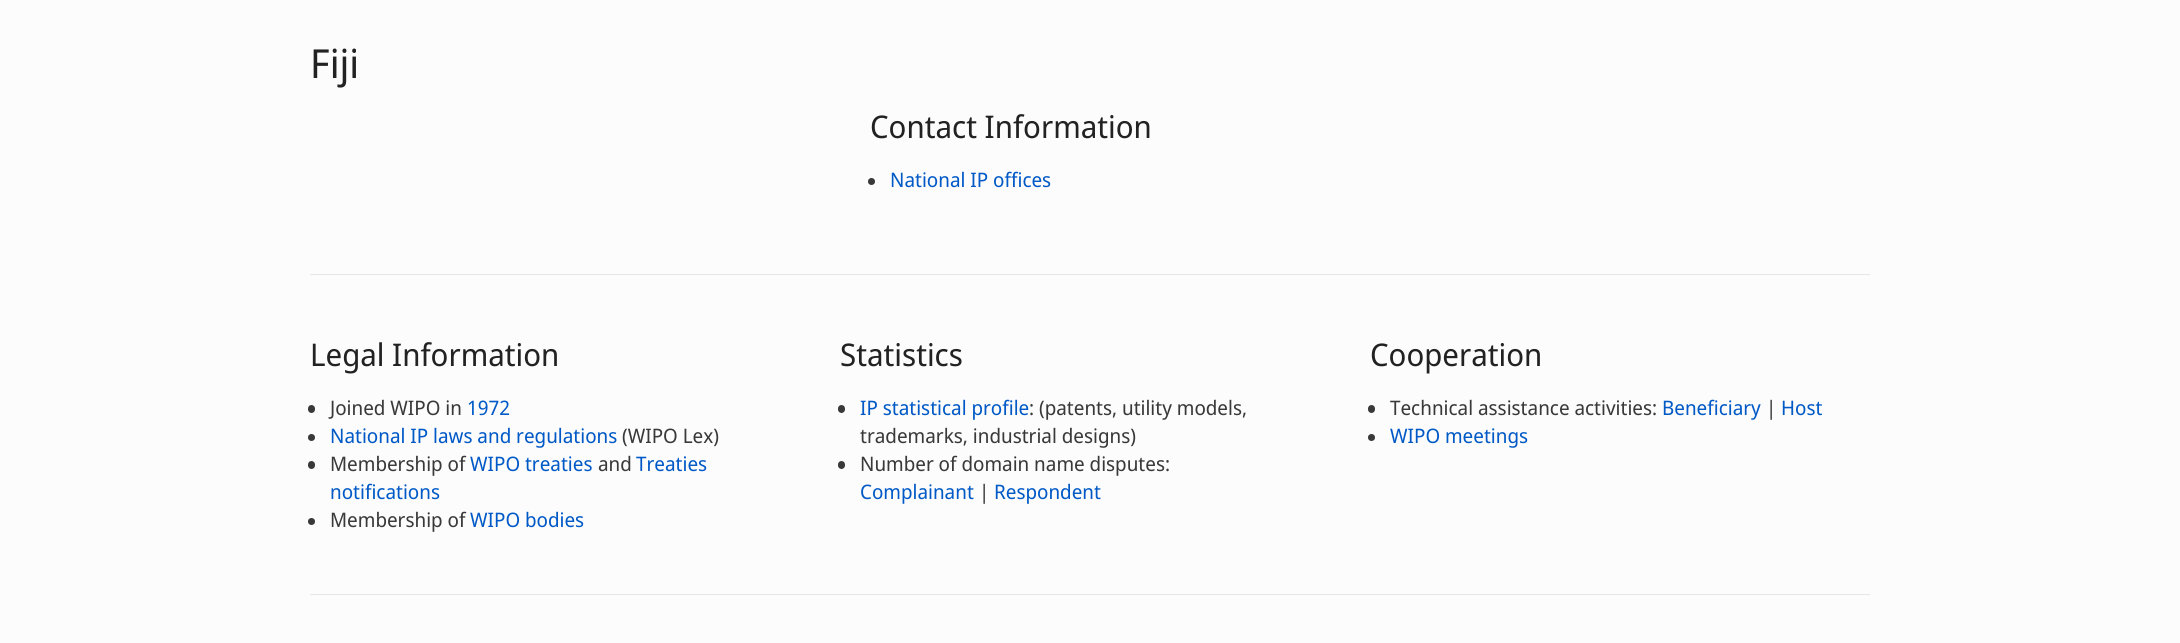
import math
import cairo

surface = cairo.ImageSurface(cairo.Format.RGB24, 2180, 643)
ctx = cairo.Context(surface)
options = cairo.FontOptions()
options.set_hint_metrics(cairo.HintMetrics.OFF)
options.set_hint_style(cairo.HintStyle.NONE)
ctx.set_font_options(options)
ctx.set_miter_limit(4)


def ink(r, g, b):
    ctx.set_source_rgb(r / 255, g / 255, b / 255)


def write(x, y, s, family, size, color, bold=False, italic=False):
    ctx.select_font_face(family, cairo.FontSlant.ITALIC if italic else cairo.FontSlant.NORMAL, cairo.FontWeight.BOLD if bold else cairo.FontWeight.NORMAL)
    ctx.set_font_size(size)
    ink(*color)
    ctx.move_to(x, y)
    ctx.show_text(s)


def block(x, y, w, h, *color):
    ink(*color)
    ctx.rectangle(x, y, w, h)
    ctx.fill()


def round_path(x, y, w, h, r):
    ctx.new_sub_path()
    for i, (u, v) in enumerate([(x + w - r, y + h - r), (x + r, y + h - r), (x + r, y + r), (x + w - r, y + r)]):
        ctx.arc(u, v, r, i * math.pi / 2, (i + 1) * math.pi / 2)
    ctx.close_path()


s1 = dict(family="Noto Sans Display", size=40, color=(34, 34, 34))
s2 = dict(family="Noto Sans Display", size=31.25, color=(34, 34, 34))
s3 = dict(family="Noto Sans Display", size=20, color=(0, 89, 198))
s4 = dict(family="Noto Sans Display", size=20, color=(57, 57, 57))

ink(252, 252, 252)
ctx.paint()
write(310, 78, "Fiji", **s1)
write(870, 138, "Contact Information", **s2)
ink(57, 57, 57)
ctx.new_path()
ctx.arc(871.5, 181.5, 3.5, 0, 2 * math.pi)
ctx.fill()
write(890, 187, "National IP offices", **s3)
block(310, 274, 1560, 1, 230, 230, 230)
write(310, 366, "Legal Information", **s2)
ink(57, 57, 57)
round_path(308, 405, 7, 8, 3.5)
ctx.fill()
write(330, 415, "Joined WIPO in", **s4)
write(467, 415, "1972", **s3)
ink(57, 57, 57)
ctx.new_path()
ctx.arc(311.5, 437.5, 3.5, 0, 2 * math.pi)
ctx.fill()
write(330, 443, "National IP laws and regulations", **s3)
write(622, 443, "(WIPO Lex)", **s4)
round_path(308, 461, 7, 8, 3.5)
ctx.fill()
write(330, 471, "Membership of", **s4)
write(470, 471, "WIPO treaties", **s3)
write(598, 471, "and", **s4)
write(636, 471, "Treaties", **s3)
write(330, 499, "notifications", **s3)
ink(57, 57, 57)
ctx.new_path()
ctx.arc(311.5, 521.5, 3.5, 0, 2 * math.pi)
ctx.fill()
write(330, 527, "Membership of", **s4)
write(470, 527, "WIPO bodies", **s3)
write(840, 366, "Statistics", **s2)
ink(57, 57, 57)
round_path(838, 405, 7, 8, 3.5)
ctx.fill()
write(860, 415, "IP statistical profile", **s3)
write(1029, 415, ": (patents, utility models,", **s4)
write(860, 443, "trademarks, industrial designs)", **s4)
round_path(838, 461, 7, 8, 3.5)
ctx.fill()
write(860, 471, "Number of domain name disputes:", **s4)
write(860, 499, "Complainant", **s3)
write(979, 499, "|", **s4)
write(994, 499, "Respondent", **s3)
write(1370, 366, "Cooperation", **s2)
ink(57, 57, 57)
round_path(1368, 405, 7, 8, 3.5)
ctx.fill()
write(1390, 415, "Technical assistance activities:", **s4)
write(1662, 415, "Beneficiary", **s3)
write(1766, 415, "|", **s4)
write(1781, 415, "Host", **s3)
ink(57, 57, 57)
ctx.new_path()
ctx.arc(1371.5, 437.5, 3.5, 0, 2 * math.pi)
ctx.fill()
write(1390, 443, "WIPO meetings", **s3)
block(310, 594, 1560, 1, 230, 230, 230)
surface.write_to_png("screenshot.png")
